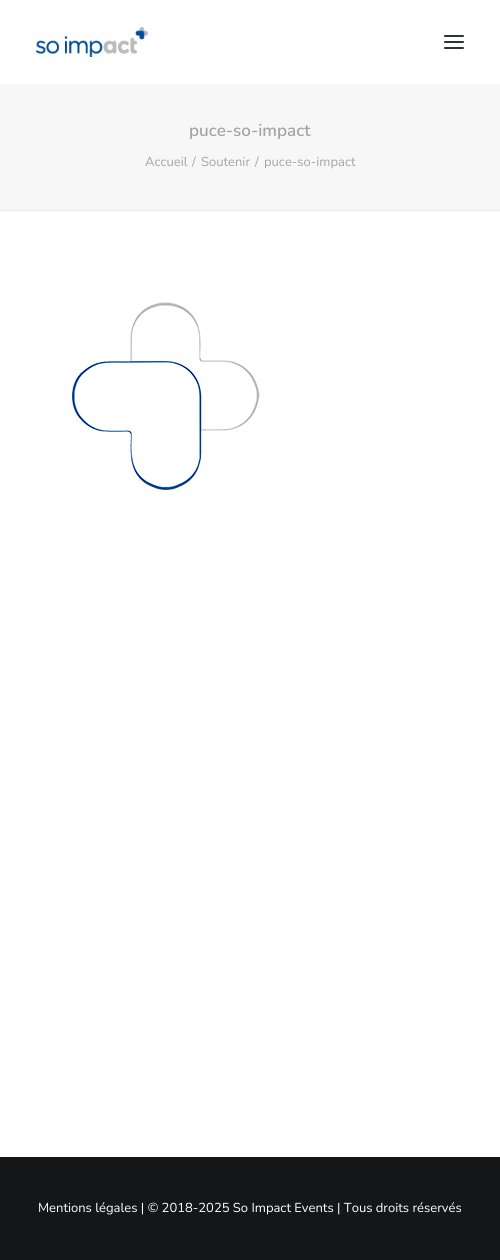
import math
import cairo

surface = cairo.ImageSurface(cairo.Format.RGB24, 500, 1260)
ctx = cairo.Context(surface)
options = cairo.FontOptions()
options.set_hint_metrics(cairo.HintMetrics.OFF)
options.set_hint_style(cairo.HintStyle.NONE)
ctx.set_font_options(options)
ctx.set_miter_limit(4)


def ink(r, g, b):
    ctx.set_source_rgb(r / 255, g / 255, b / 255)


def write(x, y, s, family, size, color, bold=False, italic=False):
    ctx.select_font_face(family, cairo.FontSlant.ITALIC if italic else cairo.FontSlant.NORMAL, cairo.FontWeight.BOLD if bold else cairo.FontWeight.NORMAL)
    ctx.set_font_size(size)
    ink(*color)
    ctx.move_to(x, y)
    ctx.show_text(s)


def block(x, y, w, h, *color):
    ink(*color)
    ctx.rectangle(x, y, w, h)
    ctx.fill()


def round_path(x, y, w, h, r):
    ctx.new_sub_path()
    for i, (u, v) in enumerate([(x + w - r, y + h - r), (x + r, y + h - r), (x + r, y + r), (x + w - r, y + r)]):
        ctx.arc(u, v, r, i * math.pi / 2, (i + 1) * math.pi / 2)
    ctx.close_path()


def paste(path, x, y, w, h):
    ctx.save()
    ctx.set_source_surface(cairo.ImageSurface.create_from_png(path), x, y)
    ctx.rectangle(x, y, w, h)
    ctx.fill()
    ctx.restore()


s1 = dict(family="Nunito SemiBold", size=17, color=(164, 164, 164))
s2 = dict(family="Nunito", size=13, color=(164, 164, 164))
s3 = dict(family="Nunito", size=13, color=(255, 255, 255))

ink(20, 22, 24)
ctx.paint()
block(0, 0, 500, 84, 255, 255, 255)
paste("pic1.png", 36, 27, 112, 30)
ink(48, 49, 51)
round_path(444, 41, 20, 2, 1)
ctx.fill()
round_path(444, 35, 20, 2, 1)
ctx.fill()
round_path(444, 47, 20, 2, 1)
ctx.fill()
block(0, 84, 500, 126, 247, 247, 247)
block(0, 210, 500, 1, 234, 234, 234)
write(189, 136, "puce-so-impact", **s1)
write(145, 166, "Accueil", **s2)
write(192, 166, "/", **s2)
write(201, 166, "Soutenir", **s2)
write(255, 166, "/", **s2)
write(264, 166, "puce-so-impact", **s2)
block(0, 211, 500, 946, 255, 255, 255)
paste("pic2.png", 72, 302, 188, 188)
write(38, 1212, "Mentions légales | © 2018-2025 So Impact Events | Tous droits réservés", **s3)
surface.write_to_png("screenshot.png")
